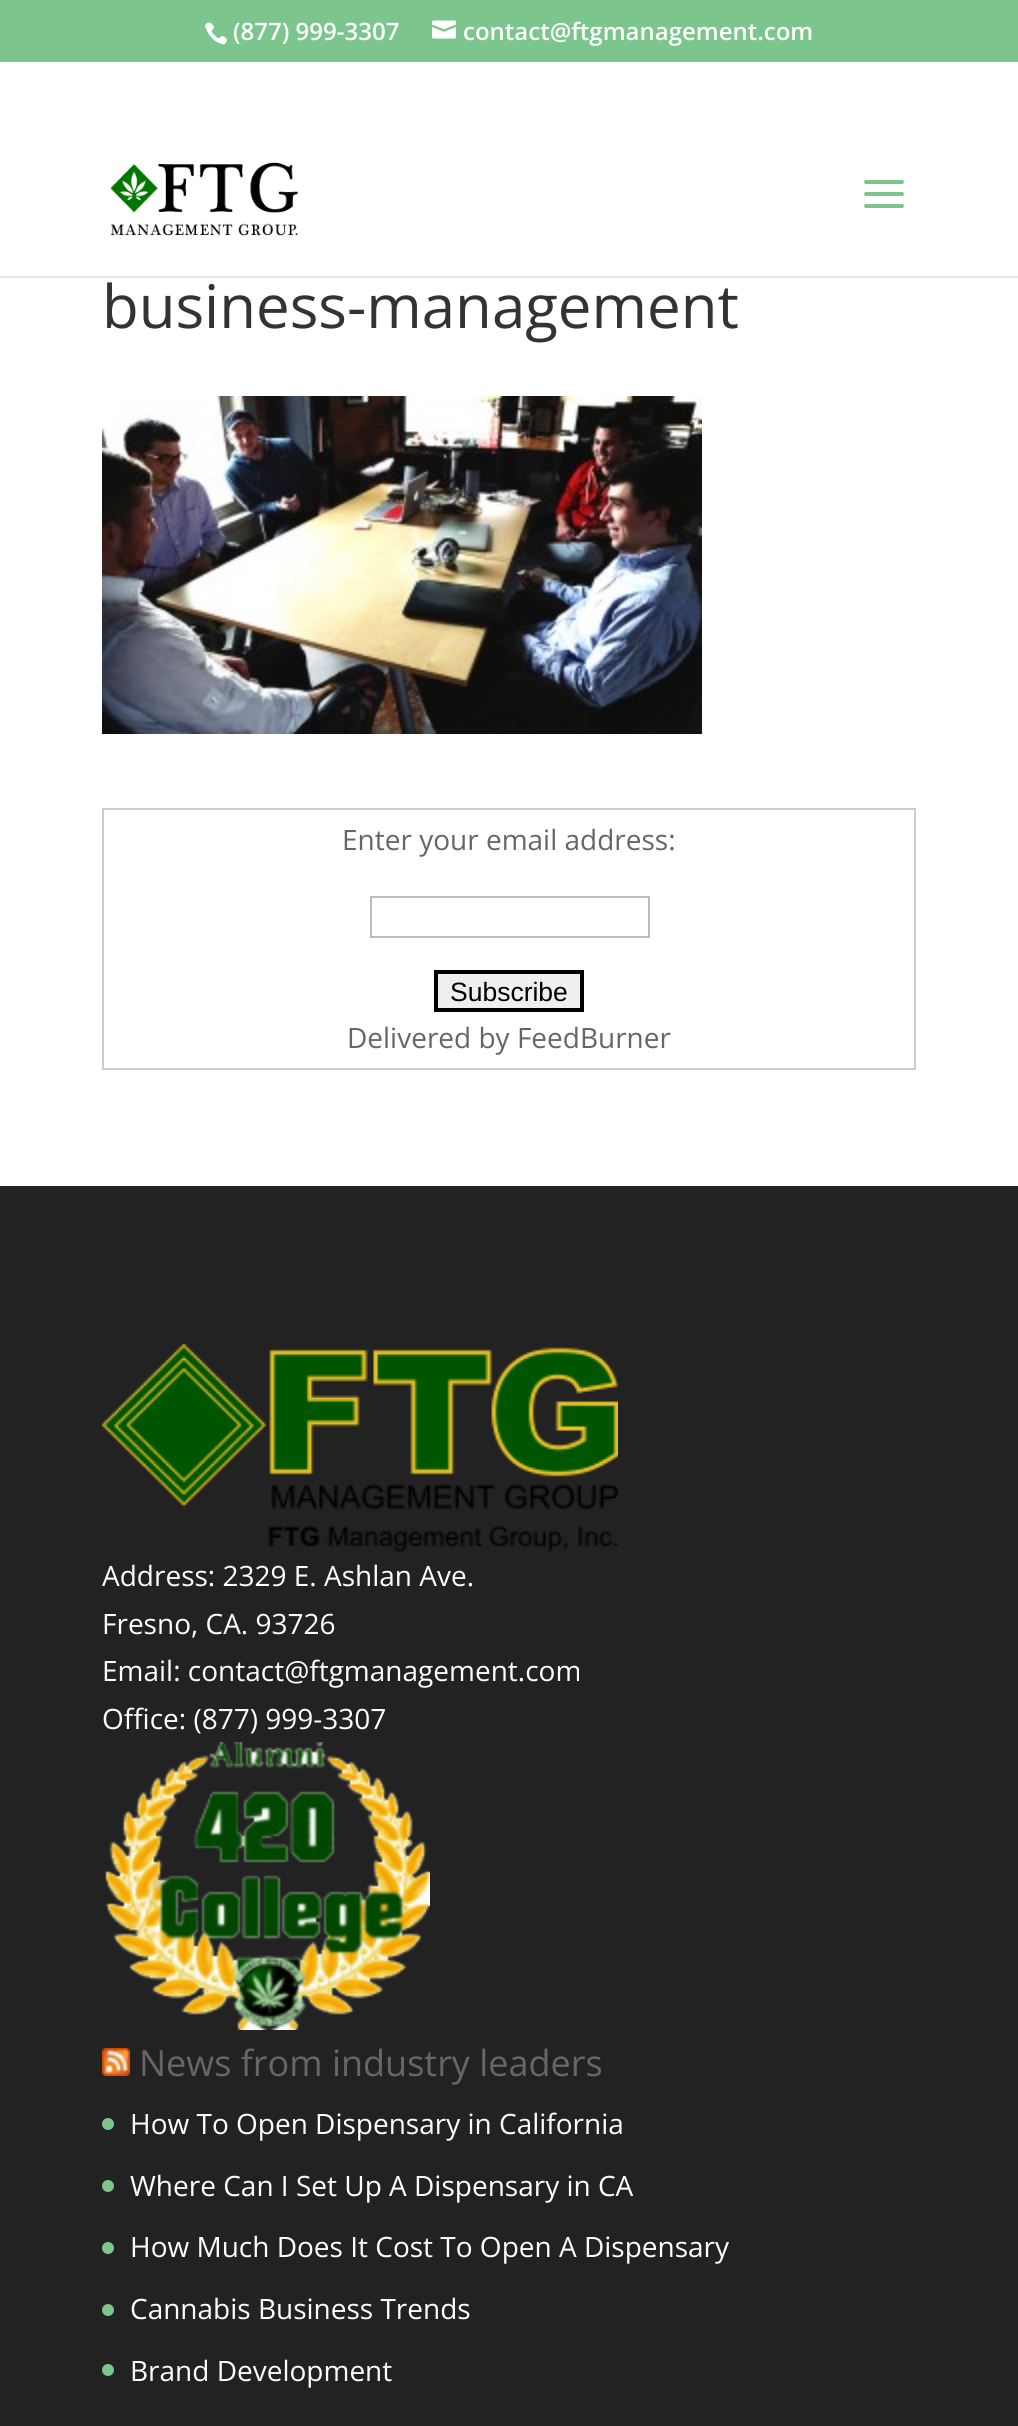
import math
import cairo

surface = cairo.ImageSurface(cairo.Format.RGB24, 1018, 2426)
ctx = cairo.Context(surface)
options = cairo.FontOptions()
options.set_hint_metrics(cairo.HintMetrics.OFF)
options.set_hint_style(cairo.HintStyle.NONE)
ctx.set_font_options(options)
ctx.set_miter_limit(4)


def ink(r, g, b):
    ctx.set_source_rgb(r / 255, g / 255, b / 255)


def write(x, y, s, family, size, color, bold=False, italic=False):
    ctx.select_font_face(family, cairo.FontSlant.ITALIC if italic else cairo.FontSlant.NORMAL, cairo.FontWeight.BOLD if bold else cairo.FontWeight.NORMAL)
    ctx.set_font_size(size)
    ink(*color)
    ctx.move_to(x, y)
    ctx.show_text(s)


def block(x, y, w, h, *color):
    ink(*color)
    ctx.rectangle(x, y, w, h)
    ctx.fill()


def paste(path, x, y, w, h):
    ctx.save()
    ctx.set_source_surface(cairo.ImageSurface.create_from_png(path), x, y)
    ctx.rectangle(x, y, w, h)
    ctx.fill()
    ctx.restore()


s1 = dict(family="Open Sans SemiBold", size=24, color=(255, 255, 255))
s2 = dict(family="Open Sans", size=60, color=(51, 51, 51))
s3 = dict(family="Open Sans", size=28, color=(102, 102, 102))
s4 = dict(family="Liberation Sans", size=26.5, color=(0, 0, 0))
s5 = dict(family="Open Sans", size=28, color=(255, 255, 255))
s6 = dict(family="Open Sans", size=36, color=(102, 102, 102))

ink(255, 255, 255)
ctx.paint()
block(0, 0, 1018, 62, 124, 198, 141)
paste("pic1.png", 205, 22, 22, 23)
write(233, 40, "(877) 999-3307", **s1)
paste("pic2.png", 432, 20, 24, 19)
write(463, 40, "contact@ftgmanagement.com", **s1)
block(0, 276, 1018, 2, 230, 230, 230)
paste("pic3.png", 110, 162, 189, 74)
paste("pic4.png", 864, 180, 40, 28)
write(102, 328, "business-management", **s2)
paste("pic5.png", 102, 396, 600, 338)
ctx.rectangle(103, 809, 812, 260)
ink(204, 204, 204)
ctx.stroke()
write(342, 850, "Enter your email address:", **s3)
ctx.rectangle(371, 897, 278, 40)
ink(187, 187, 187)
ctx.stroke()
ink(239, 239, 239)
ctx.rectangle(436, 972, 146, 38)
ctx.fill_preserve()
ink(0, 0, 0)
ctx.set_line_width(4)
ctx.stroke()
write(450, 1001, "Subscribe", **s4)
write(347, 1048, "Delivered by FeedBurner", **s3)
block(0, 1186, 1018, 1240, 34, 34, 34)
paste("pic6.png", 102, 1344, 516, 208)
write(102, 1586, "Address: 2329 E. Ashlan Ave.", **s5)
write(102, 1634, "Fresno, CA. 93726", **s5)
write(102, 1681, "Email: contact@ftgmanagement.com", **s5)
write(102, 1729, "Office: (877) 999-3307", **s5)
paste("pic7.png", 105, 1742, 325, 288)
paste("pic8.png", 102, 2048, 28, 28)
write(139, 2076, "News from industry leaders", **s6)
ink(124, 198, 141)
ctx.new_path()
ctx.arc(108, 2124, 6, 0, 2 * math.pi)
ctx.fill()
write(130, 2134, "How To Open Dispensary in California", **s5)
ink(124, 198, 141)
ctx.new_path()
ctx.arc(108, 2186, 6, 0, 2 * math.pi)
ctx.fill()
write(130, 2196, "Where Can I Set Up A Dispensary in CA", **s5)
ink(124, 198, 141)
ctx.new_path()
ctx.arc(108, 2248, 6, 0, 2 * math.pi)
ctx.fill()
write(130, 2257, "How Much Does It Cost To Open A Dispensary", **s5)
ink(124, 198, 141)
ctx.new_path()
ctx.arc(108, 2310, 6, 0, 2 * math.pi)
ctx.fill()
write(130, 2319, "Cannabis Business Trends", **s5)
ink(124, 198, 141)
ctx.new_path()
ctx.arc(108, 2370, 6, 0, 2 * math.pi)
ctx.fill()
write(130, 2381, "Brand Development", **s5)
surface.write_to_png("screenshot.png")
